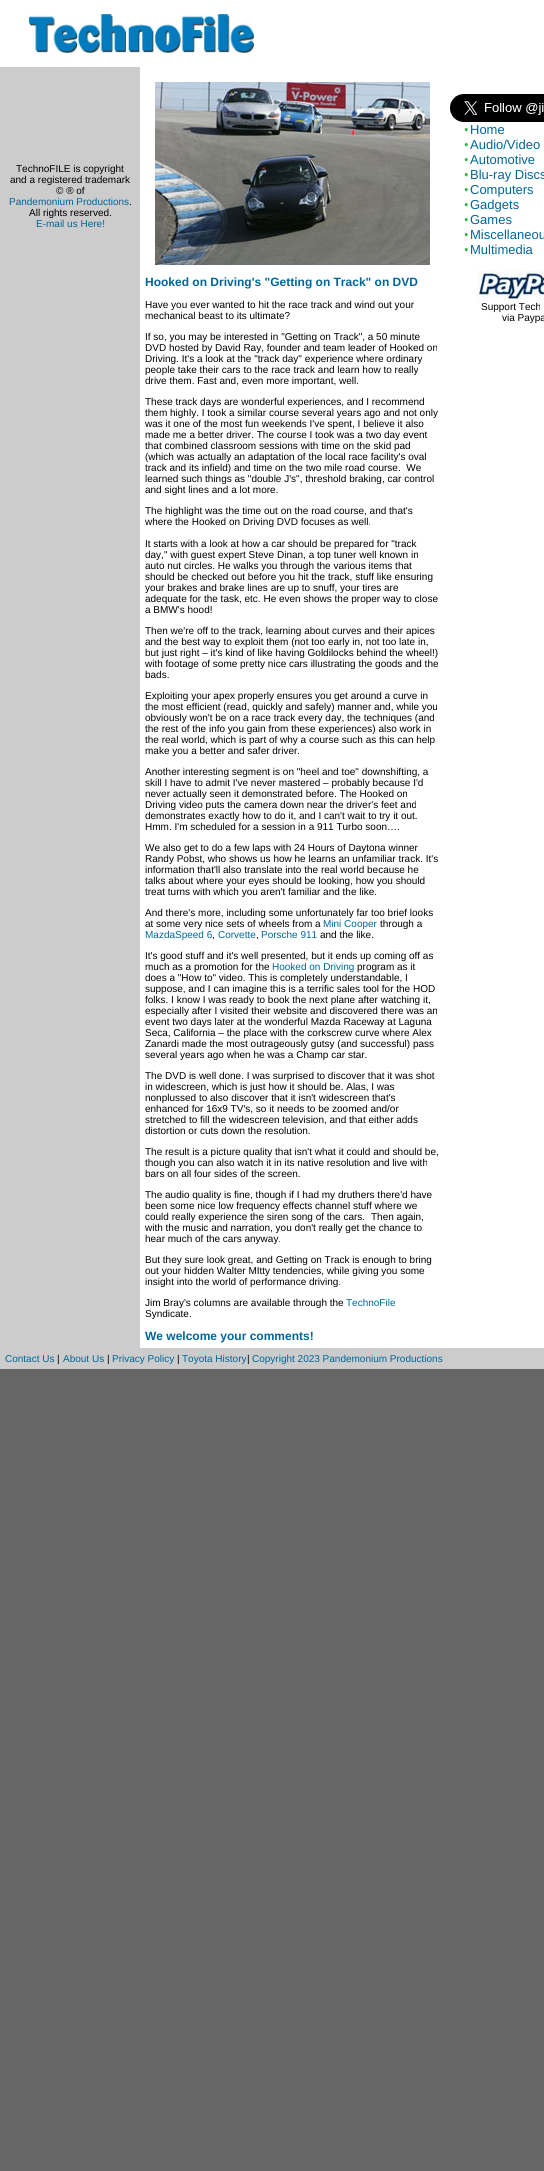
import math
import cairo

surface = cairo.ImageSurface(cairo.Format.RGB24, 544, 2171)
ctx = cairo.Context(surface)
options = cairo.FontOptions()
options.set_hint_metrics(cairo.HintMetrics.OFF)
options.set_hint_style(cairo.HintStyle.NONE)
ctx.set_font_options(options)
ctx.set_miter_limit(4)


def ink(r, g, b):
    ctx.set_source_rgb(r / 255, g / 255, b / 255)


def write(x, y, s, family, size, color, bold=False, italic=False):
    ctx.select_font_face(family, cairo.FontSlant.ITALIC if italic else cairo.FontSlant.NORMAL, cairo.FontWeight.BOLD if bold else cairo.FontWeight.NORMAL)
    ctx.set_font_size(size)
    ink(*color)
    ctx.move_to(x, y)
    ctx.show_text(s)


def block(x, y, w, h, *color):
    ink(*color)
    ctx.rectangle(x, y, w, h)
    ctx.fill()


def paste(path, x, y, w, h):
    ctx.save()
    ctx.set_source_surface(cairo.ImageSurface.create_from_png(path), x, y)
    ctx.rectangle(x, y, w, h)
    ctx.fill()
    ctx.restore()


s1 = dict(family="Liberation Sans", size=10, color=(0, 0, 0))
s2 = dict(family="Liberation Sans", size=10, color=(0, 102, 153))
s3 = dict(family="Liberation Sans", size=13, color=(0, 102, 153))
s4 = dict(family="Liberation Sans", size=12, color=(0, 102, 153), bold=True)

ink(102, 102, 102)
ctx.paint()
block(0, 0, 544, 1348, 255, 255, 255)
paste("pic1.png", 29, 14, 225, 39)
block(0, 67, 140, 1281, 204, 204, 204)
write(16, 172, "TechnoFILE is copyright", **s1)
write(10, 183, "and a registered trademark", **s1)
write(56, 194, "© ® of", **s1)
write(9, 205, "Pandemonium Productions", **s2)
write(129, 205, ".", **s1)
write(29, 216, "All rights reserved.", **s1)
write(36, 227, "E-mail us Here!", **s2)
paste("pic2.png", 450, 94, 94, 28)
paste("pic3.png", 464, 128, 4, 4)
write(470, 134, "Home", **s3)
paste("pic3.png", 464, 143, 4, 4)
write(470, 149, "Audio/Video", **s3)
paste("pic3.png", 464, 158, 4, 4)
write(470, 164, "Automotive", **s3)
paste("pic3.png", 464, 173, 4, 4)
write(470, 179, "Blu-ray Discs", **s3)
paste("pic3.png", 464, 188, 4, 4)
write(470, 194, "Computers", **s3)
paste("pic3.png", 464, 203, 4, 4)
write(470, 209, "Gadgets", **s3)
paste("pic3.png", 464, 218, 4, 4)
write(470, 224, "Games", **s3)
paste("pic3.png", 464, 233, 4, 4)
write(470, 239, "Miscellaneou", **s3)
paste("pic3.png", 464, 248, 4, 4)
write(470, 254, "Multimedia", **s3)
paste("pic4.png", 477, 271, 67, 30)
write(481, 310, "Support Tech", **s1)
write(502, 321, "via Paypa", **s1)
paste("pic5.png", 155, 82, 275, 183)
write(145, 286, "Hooked on Driving's \"Getting on Track\" on DVD", **s4)
write(145, 308, "Have you ever wanted to hit the race track and wind out your", **s1)
write(145, 319, "mechanical beast to its ultimate?", **s1)
write(145, 340, "If so, you may be interested in \"Getting on Track\", a 50 minute", **s1)
write(145, 351, "DVD hosted by David Ray, founder and team leader of Hooked on", **s1)
write(145, 362, "Driving. It's a look at the \"track day\" experience where ordinary", **s1)
write(145, 373, "people take their cars to the race track and learn how to really", **s1)
write(145, 384, "drive them. Fast and, even more important, well.", **s1)
write(145, 405, "These track days are wonderful experiences, and I recommend", **s1)
write(145, 416, "them highly. I took a similar course several years ago and not only", **s1)
write(145, 427, "was it one of the most fun weekends I've spent, I believe it also", **s1)
write(145, 438, "made me a better driver. The course I took was a two day event", **s1)
write(145, 449, "that combined classroom sessions with time on the skid pad", **s1)
write(145, 460, "(which was actually an adaptation of the local race facility's oval", **s1)
write(145, 471, "track and its infield) and time on the two mile road course.  We", **s1)
write(145, 482, "learned such things as \"double J's\", threshold braking, car control", **s1)
write(145, 493, "and sight lines and a lot more.", **s1)
write(145, 514, "The highlight was the time out on the road course, and that's", **s1)
write(145, 525, "where the Hooked on Driving DVD focuses as well.", **s1)
write(145, 547, "It starts with a look at how a car should be prepared for \"track", **s1)
write(145, 558, "day,\" with guest expert Steve Dinan, a top tuner well known in", **s1)
write(145, 569, "auto nut circles. He walks you through the various items that", **s1)
write(145, 580, "should be checked out before you hit the track, stuff like ensuring", **s1)
write(145, 591, "your brakes and brake lines are up to snuff, your tires are", **s1)
write(145, 602, "adequate for the task, etc. He even shows the proper way to close", **s1)
write(145, 613, "a BMW's hood!", **s1)
write(145, 634, "Then we're off to the track, learning about curves and their apices", **s1)
write(145, 645, "and the best way to exploit them (not too early in, not too late in,", **s1)
write(145, 656, "but just right – it's kind of like having Goldilocks behind the wheel!)", **s1)
write(145, 667, "with footage of some pretty nice cars illustrating the goods and the", **s1)
write(145, 678, "bads.", **s1)
write(145, 699, "Exploiting your apex properly ensures you get around a curve in", **s1)
write(145, 710, "the most efficient (read, quickly and safely) manner and, while you", **s1)
write(145, 721, "obviously won't be on a race track every day, the techniques (and", **s1)
write(145, 732, "the rest of the info you gain from these experiences) also work in", **s1)
write(145, 743, "the real world, which is part of why a course such as this can help", **s1)
write(145, 754, "make you a better and safer driver.", **s1)
write(145, 775, "Another interesting segment is on \"heel and toe\" downshifting, a", **s1)
write(145, 786, "skill I have to admit I've never mastered – probably because I'd", **s1)
write(145, 797, "never actually seen it demonstrated before. The Hooked on", **s1)
write(145, 808, "Driving video puts the camera down near the driver's feet and", **s1)
write(145, 819, "demonstrates exactly how to do it, and I can't wait to try it out.", **s1)
write(145, 830, "Hmm. I'm scheduled for a session in a 911 Turbo soon….", **s1)
write(145, 851, "We also get to do a few laps with 24 Hours of Daytona winner", **s1)
write(145, 862, "Randy Pobst, who shows us how he learns an unfamiliar track. It's", **s1)
write(145, 873, "information that'll also translate into the real world because he", **s1)
write(145, 884, "talks about where your eyes should be looking, how you should", **s1)
write(145, 895, "treat turns with which you aren't familiar and the like.", **s1)
write(145, 916, "And there's more, including some unfortunately far too brief looks", **s1)
write(145, 927, "at some very nice sets of wheels from a", **s1)
write(323, 927, "Mini Cooper", **s2)
write(380, 927, "through a", **s1)
write(145, 938, "MazdaSpeed 6", **s2)
write(212, 938, ",", **s1)
write(218, 938, "Corvette", **s2)
write(256, 938, ",", **s1)
write(261, 938, "Porsche 911", **s2)
write(320, 938, "and the like.", **s1)
write(145, 959, "It's good stuff and it's well presented, but it ends up coming off as", **s1)
write(145, 970, "much as a promotion for the", **s1)
write(272, 970, "Hooked on Driving", **s2)
write(357, 970, "program as it", **s1)
write(145, 981, "does a \"How to\" video. This is completely understandable, I", **s1)
write(145, 992, "suppose, and I can imagine this is a terrific sales tool for the HOD", **s1)
write(145, 1003, "folks. I know I was ready to book the next plane after watching it,", **s1)
write(145, 1014, "especially after I visited their website and discovered there was an", **s1)
write(145, 1025, "event two days later at the wonderful Mazda Raceway at Laguna", **s1)
write(145, 1036, "Seca, California – the place with the corkscrew curve where Alex", **s1)
write(145, 1047, "Zanardi made the most outrageously gutsy (and successful) pass", **s1)
write(145, 1058, "several years ago when he was a Champ car star.", **s1)
write(145, 1079, "The DVD is well done. I was surprised to discover that it was shot", **s1)
write(145, 1090, "in widescreen, which is just how it should be. Alas, I was", **s1)
write(145, 1101, "nonplussed to also discover that it isn't widescreen that's", **s1)
write(145, 1112, "enhanced for 16x9 TV's, so it needs to be zoomed and/or", **s1)
write(145, 1123, "stretched to fill the widescreen television, and that either adds", **s1)
write(145, 1134, "distortion or cuts down the resolution.", **s1)
write(145, 1155, "The result is a picture quality that isn't what it could and should be,", **s1)
write(145, 1166, "though you can also watch it in its native resolution and live with", **s1)
write(145, 1177, "bars on all four sides of the screen.", **s1)
write(145, 1198, "The audio quality is fine, though if I had my druthers there'd have", **s1)
write(145, 1209, "been some nice low frequency effects channel stuff where we", **s1)
write(145, 1220, "could really experience the siren song of the cars.", **s1)
write(371, 1220, "Then again,", **s1)
write(145, 1231, "with the music and narration, you don't really get the chance to", **s1)
write(145, 1242, "hear much of the cars anyway.", **s1)
write(145, 1263, "But they sure look great, and Getting on Track is enough to bring", **s1)
write(145, 1274, "out your hidden Walter MItty tendencies, while giving you some", **s1)
write(145, 1285, "insight into the world of performance driving.", **s1)
write(145, 1306, "Jim Bray's columns are available through the", **s1)
write(346, 1306, "TechnoFile", **s2)
write(145, 1317, "Syndicate.", **s1)
write(145, 1340, "We welcome your comments!", **s4)
block(0, 1348, 544, 21, 204, 204, 204)
write(5, 1362, "Contact Us", **s2)
write(57, 1362, "|", **s1)
write(63, 1362, "About Us", **s2)
write(107, 1362, "|", **s1)
write(112, 1362, "Privacy Policy", **s2)
write(177, 1362, "|", **s1)
write(182, 1362, "Toyota History", **s2)
write(247, 1362, "|", **s1)
write(252, 1362, "Copyright 2023 Pandemonium Productions", **s2)
surface.write_to_png("screenshot.png")
